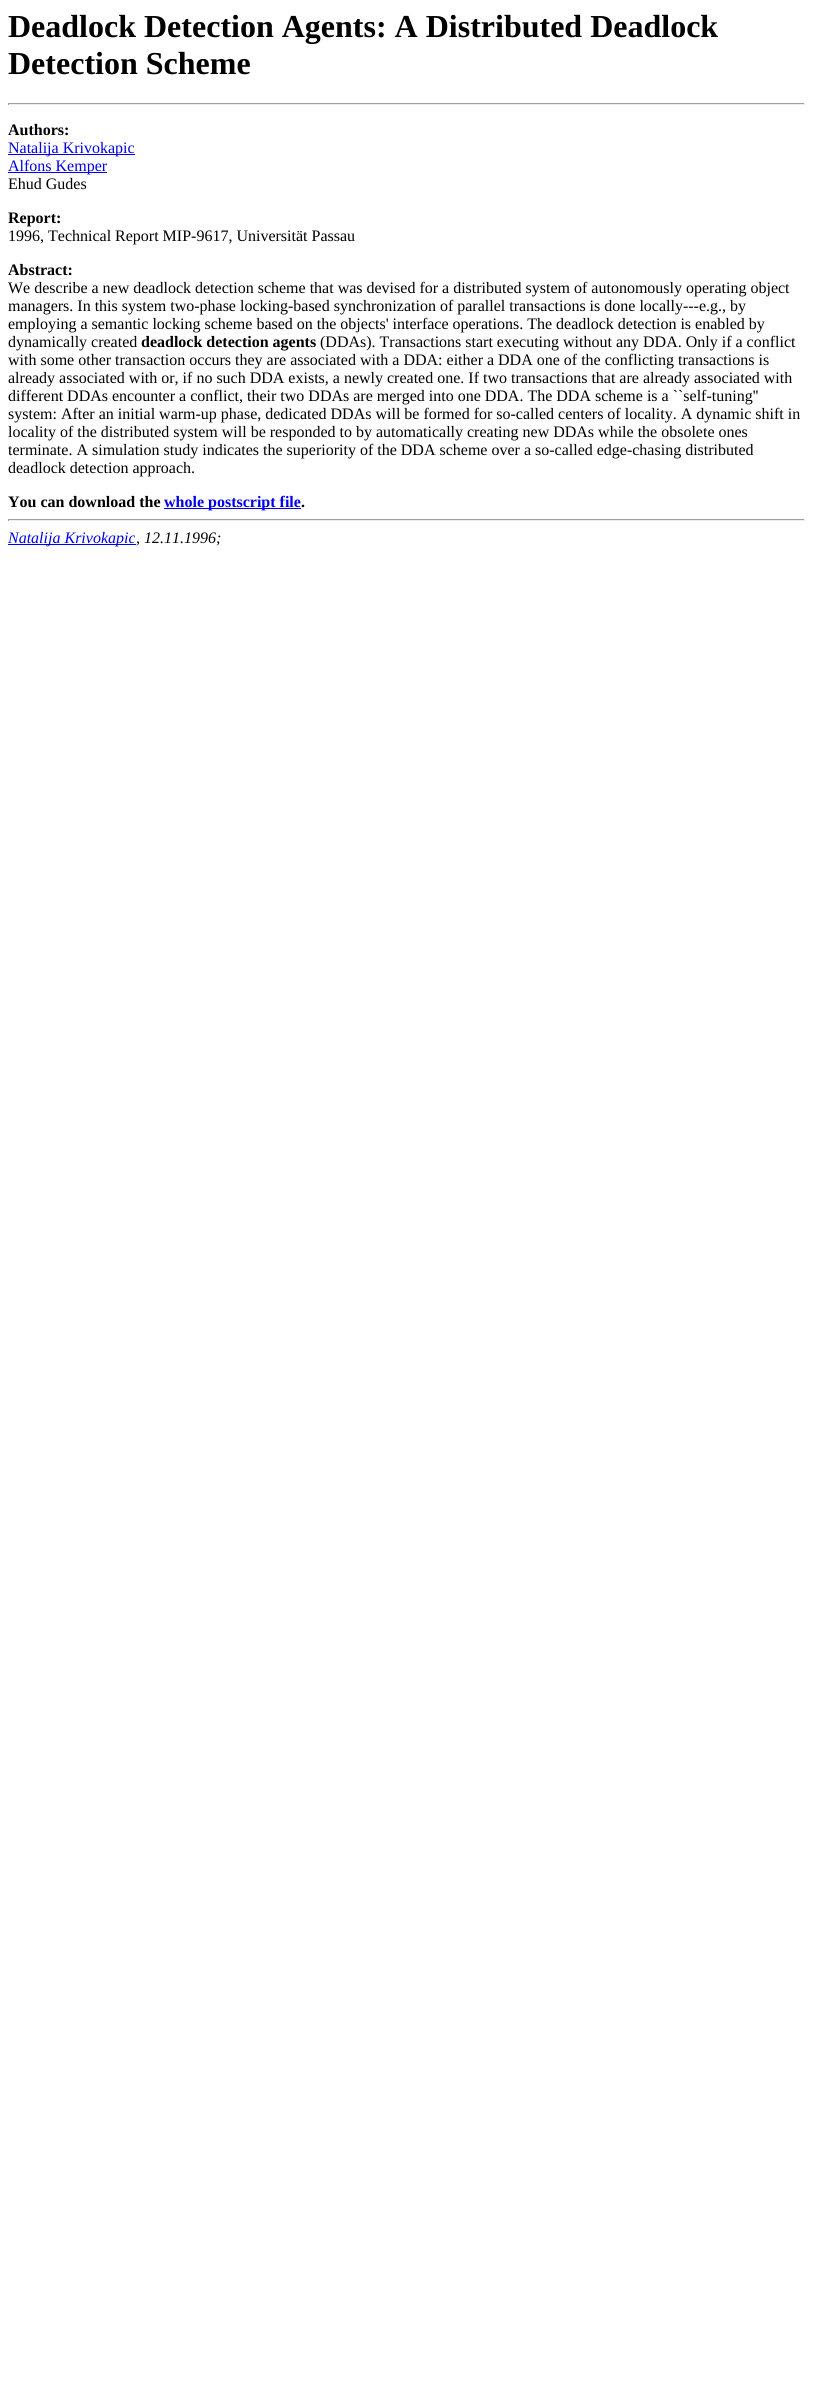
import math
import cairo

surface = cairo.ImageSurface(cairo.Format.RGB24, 813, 2393)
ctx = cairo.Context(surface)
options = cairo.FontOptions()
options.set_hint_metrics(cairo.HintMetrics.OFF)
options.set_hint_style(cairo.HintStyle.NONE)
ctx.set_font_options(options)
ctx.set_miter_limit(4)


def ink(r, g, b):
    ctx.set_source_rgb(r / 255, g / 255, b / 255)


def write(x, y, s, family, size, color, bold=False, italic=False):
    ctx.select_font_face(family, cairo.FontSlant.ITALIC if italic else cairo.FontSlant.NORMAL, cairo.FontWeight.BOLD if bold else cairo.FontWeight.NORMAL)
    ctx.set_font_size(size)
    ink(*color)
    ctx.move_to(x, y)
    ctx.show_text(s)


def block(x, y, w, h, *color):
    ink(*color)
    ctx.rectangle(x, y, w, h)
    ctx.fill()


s1 = dict(family="Liberation Serif", size=32, color=(0, 0, 0), bold=True)
s2 = dict(family="Liberation Serif", size=16, color=(0, 0, 0), bold=True)
s3 = dict(family="Liberation Serif", size=16, color=(0, 0, 238))
s4 = dict(family="Liberation Serif", size=16, color=(0, 0, 0))
s5 = dict(family="Liberation Serif", size=16, color=(0, 0, 238), bold=True)
s6 = dict(family="Liberation Serif", size=16, color=(0, 0, 238), italic=True)
s7 = dict(family="Liberation Serif", size=16, color=(0, 0, 0), italic=True)

ink(255, 255, 255)
ctx.paint()
write(8, 37, "Deadlock Detection Agents: A Distributed Deadlock", **s1)
write(8, 74, "Detection Scheme", **s1)
block(8, 103, 797, 1, 159, 159, 159)
block(804, 103, 1, 2, 238, 238, 238)
block(8, 104, 797, 1, 238, 238, 238)
block(8, 103, 1, 2, 159, 159, 159)
write(8, 135, "Authors:", **s2)
block(8, 154, 127, 1, 0, 0, 238)
write(8, 153, "Natalija Krivokapic", **s3)
block(8, 172, 99, 1, 0, 0, 238)
write(8, 171, "Alfons Kemper", **s3)
write(8, 189, "Ehud Gudes", **s4)
write(8, 223, "Report:", **s2)
write(8, 241, "1996, Technical Report MIP-9617, Universität Passau", **s4)
write(8, 275, "Abstract:", **s2)
write(8, 293, "We describe a new deadlock detection scheme that was devised for a distributed system of autonomously operating object", **s4)
write(8, 311, "managers. In this system two-phase locking-based synchronization of parallel transactions is done locally---e.g., by", **s4)
write(8, 329, "employing a semantic locking scheme based on the objects' interface operations. The deadlock detection is enabled by", **s4)
write(8, 347, "dynamically created", **s4)
write(141, 347, "deadlock detection agents", **s2)
write(320, 347, "(DDAs). Transactions start executing without any DDA. Only if a conflict", **s4)
write(8, 365, "with some other transaction occurs they are associated with a DDA: either a DDA one of the conflicting transactions is", **s4)
write(8, 383, "already associated with or, if no such DDA exists, a newly created one. If two transactions that are already associated with", **s4)
write(8, 401, "different DDAs encounter a conflict, their two DDAs are merged into one DDA. The DDA scheme is a ``self-tuning''", **s4)
write(8, 419, "system: After an initial warm-up phase, dedicated DDAs will be formed for so-called centers of locality. A dynamic shift in", **s4)
write(8, 437, "locality of the distributed system will be responded to by automatically creating new DDAs while the obsolete ones", **s4)
write(8, 455, "terminate. A simulation study indicates the superiority of the DDA scheme over a so-called edge-chasing distributed", **s4)
write(8, 473, "deadlock detection approach.", **s4)
write(8, 507, "You can download the", **s2)
block(164, 508, 137, 1, 0, 0, 238)
write(164, 507, "whole postscript file", **s5)
write(301, 507, ".", **s2)
block(8, 519, 797, 1, 159, 159, 159)
block(804, 519, 1, 2, 238, 238, 238)
block(8, 520, 797, 1, 238, 238, 238)
block(8, 519, 1, 2, 159, 159, 159)
block(8, 544, 128, 1, 0, 0, 238)
write(8, 543, "Natalija Krivokapic", **s6)
write(136, 543, ", 12.11.1996;", **s7)
surface.write_to_png("screenshot.png")
